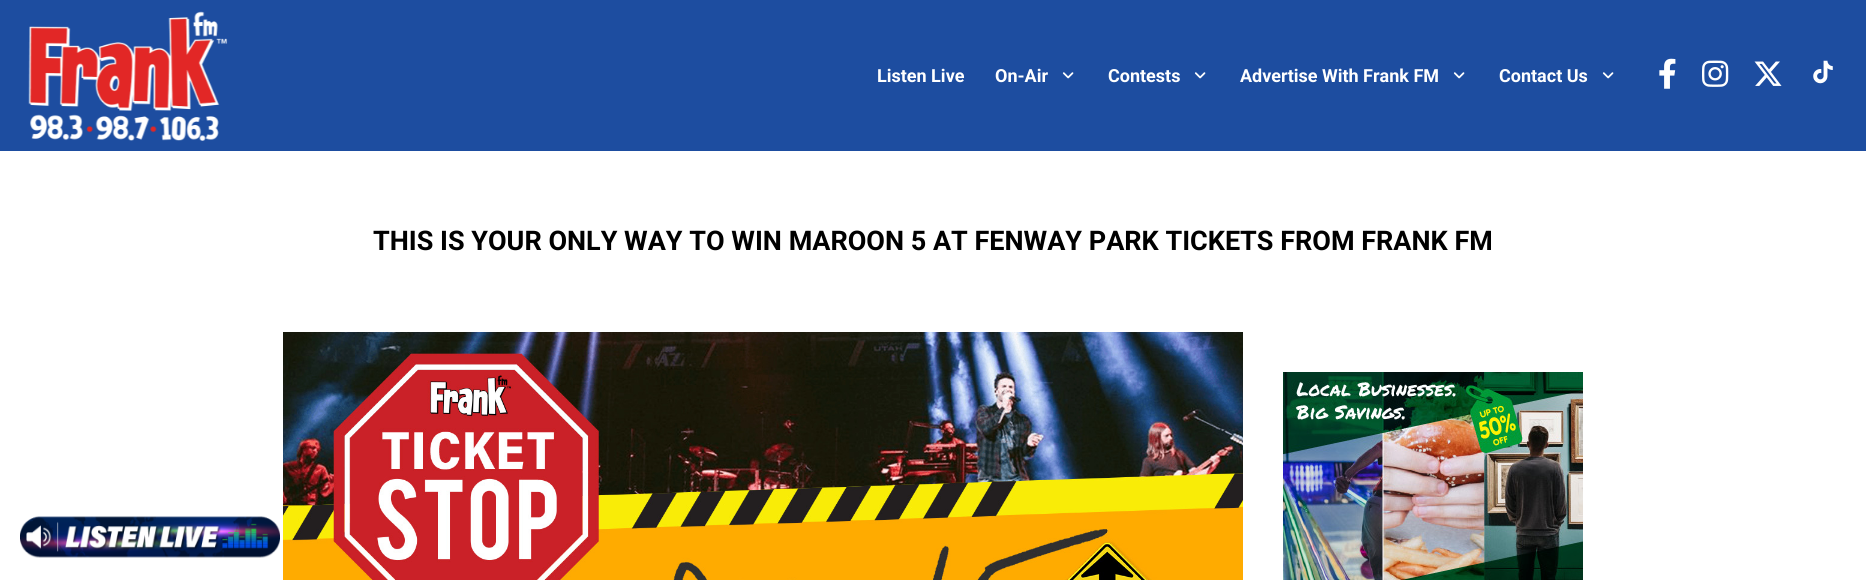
import math
import cairo

surface = cairo.ImageSurface(cairo.Format.RGB24, 1866, 580)
ctx = cairo.Context(surface)
options = cairo.FontOptions()
options.set_hint_metrics(cairo.HintMetrics.OFF)
options.set_hint_style(cairo.HintStyle.NONE)
ctx.set_font_options(options)
ctx.set_miter_limit(4)


def ink(r, g, b):
    ctx.set_source_rgb(r / 255, g / 255, b / 255)


def write(x, y, s, family, size, color, bold=False, italic=False):
    ctx.select_font_face(family, cairo.FontSlant.ITALIC if italic else cairo.FontSlant.NORMAL, cairo.FontWeight.BOLD if bold else cairo.FontWeight.NORMAL)
    ctx.set_font_size(size)
    ink(*color)
    ctx.move_to(x, y)
    ctx.show_text(s)


def block(x, y, w, h, *color):
    ink(*color)
    ctx.rectangle(x, y, w, h)
    ctx.fill()


def paste(path, x, y, w, h):
    ctx.save()
    ctx.set_source_surface(cairo.ImageSurface.create_from_png(path), x, y)
    ctx.rectangle(x, y, w, h)
    ctx.fill()
    ctx.restore()


s1 = dict(family="Roboto", size=18, color=(255, 255, 255), bold=True)
s2 = dict(family="Roboto", size=27, color=(0, 0, 0), bold=True)

ink(255, 255, 255)
ctx.paint()
block(0, 0, 1866, 151, 29, 77, 160)
paste("pic1.png", 28, 11, 200, 130)
write(877, 82, "Listen Live", **s1)
write(995, 82, "On-Air", **s1)
paste("pic2.png", 1062, 72, 12, 7)
write(1108, 82, "Contests", **s1)
paste("pic2.png", 1194, 72, 12, 7)
write(1240, 82, "Advertise With Frank FM", **s1)
paste("pic2.png", 1453, 72, 12, 7)
write(1499, 82, "Contact Us", **s1)
paste("pic2.png", 1602, 72, 12, 7)
paste("pic3.png", 1659, 58, 17, 31)
paste("pic4.png", 1702, 60, 27, 27)
paste("pic5.png", 1754, 61, 28, 25)
paste("pic6.png", 1813, 60, 20, 24)
write(373, 250, "THIS IS YOUR ONLY WAY TO WIN MAROON 5 AT FENWAY PARK TICKETS FROM FRANK FM", **s2)
paste("pic7.png", 283, 332, 960, 248)
paste("pic8.png", 1283, 372, 300, 208)
paste("pic9.png", 20, 516, 260, 42)
surface.write_to_png("screenshot.png")
